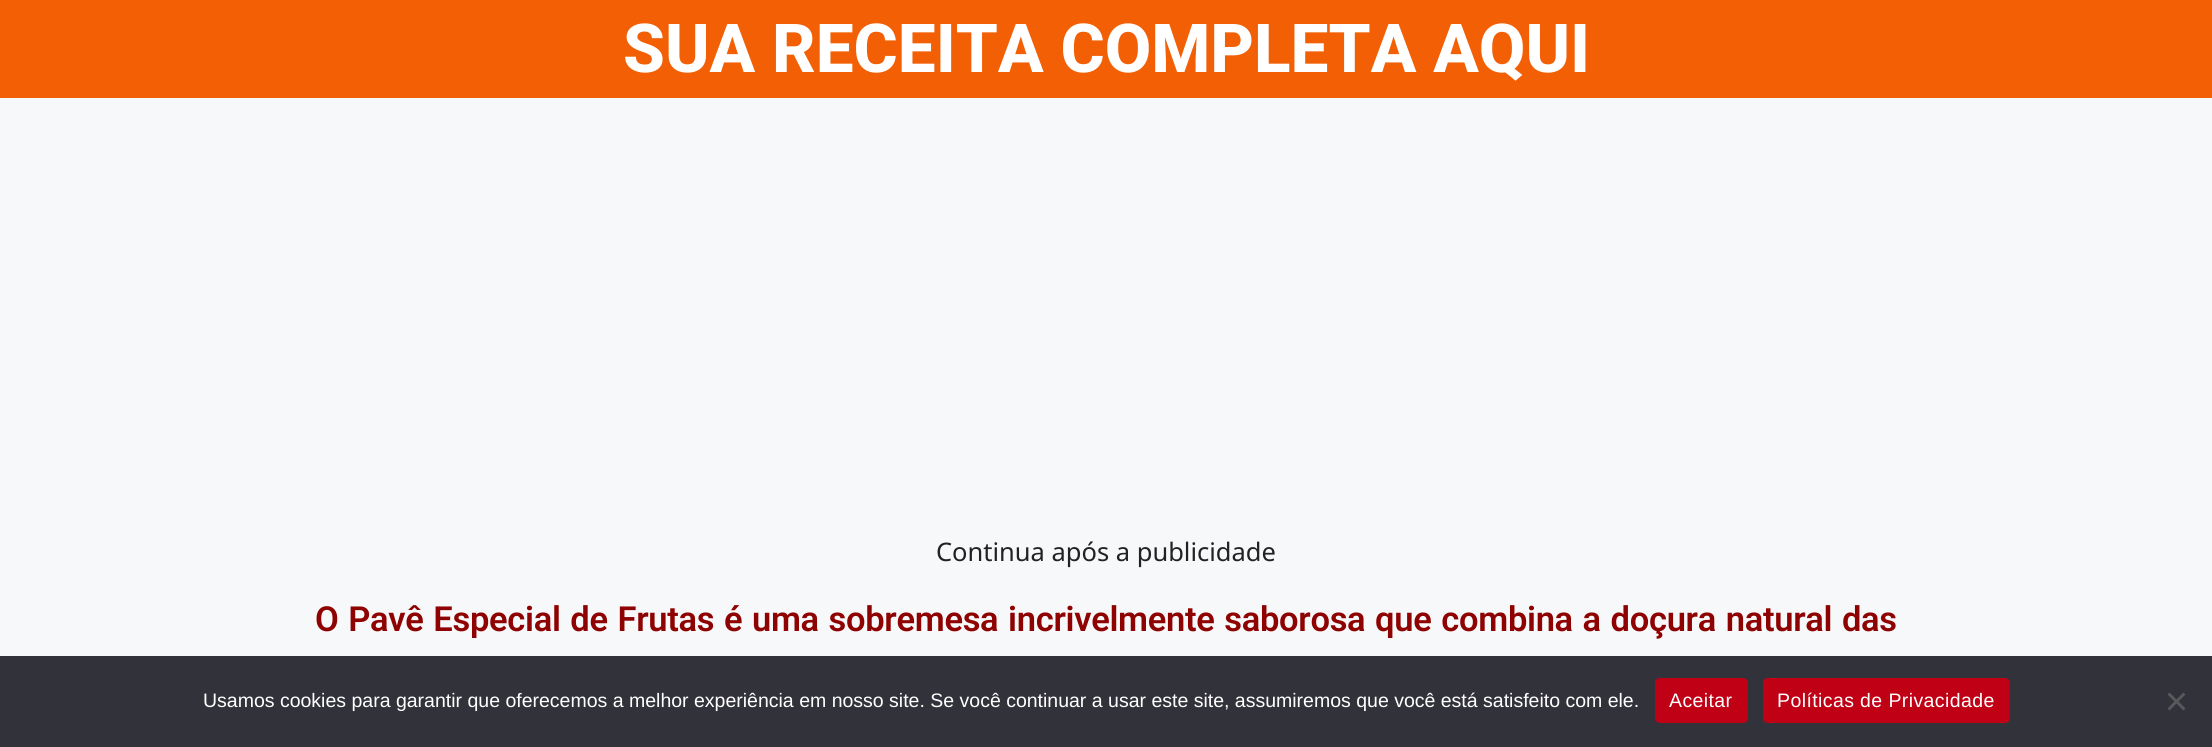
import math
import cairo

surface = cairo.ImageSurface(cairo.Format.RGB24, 2212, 747)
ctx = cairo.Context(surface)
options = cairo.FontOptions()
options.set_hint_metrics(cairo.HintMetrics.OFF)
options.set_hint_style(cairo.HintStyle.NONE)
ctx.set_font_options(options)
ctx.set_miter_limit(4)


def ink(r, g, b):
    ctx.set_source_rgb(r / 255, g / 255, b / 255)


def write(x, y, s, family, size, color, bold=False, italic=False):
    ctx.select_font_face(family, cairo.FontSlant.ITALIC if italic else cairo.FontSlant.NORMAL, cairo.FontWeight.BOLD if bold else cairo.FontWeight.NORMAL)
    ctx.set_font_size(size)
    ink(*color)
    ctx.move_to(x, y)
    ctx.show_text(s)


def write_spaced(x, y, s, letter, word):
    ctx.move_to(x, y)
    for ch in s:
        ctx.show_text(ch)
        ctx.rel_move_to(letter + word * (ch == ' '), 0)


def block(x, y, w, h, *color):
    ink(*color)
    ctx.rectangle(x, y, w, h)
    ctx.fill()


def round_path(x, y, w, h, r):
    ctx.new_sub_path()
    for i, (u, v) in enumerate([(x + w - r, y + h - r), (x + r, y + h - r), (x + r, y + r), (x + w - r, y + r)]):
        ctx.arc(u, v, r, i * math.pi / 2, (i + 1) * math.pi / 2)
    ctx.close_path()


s1 = dict(family="Roboto ExtraBold", size=67.5, color=(255, 255, 255))
s2 = dict(family="Noto Sans", size=25.5, color=(34, 34, 34))
s3 = dict(family="Liberation Sans", size=19.5, color=(255, 255, 255))

ink(247, 248, 249)
ctx.paint()
block(0, 0, 2212, 98, 242, 95, 5)
write(623, 72, "SUA RECEITA COMPLETA AQUI", **s1)
write(936, 561, "Continua após a publicidade", **s2)
ctx.select_font_face("Roboto SemiBold")
ctx.set_font_size(34.5)
ink(142, 2, 2)
write_spaced(315, 631, "O Pavê Especial de Frutas é uma sobremesa incrivelmente saborosa que combina a doçura natural das", -0.3, 1.5)
block(0, 656, 2212, 91, 50, 50, 58)
write(203, 707, "Usamos cookies para garantir que oferecemos a melhor experiência em nosso site. Se você continuar a usar este site, assumiremos que você está satisfeito com ele.", **s3)
ink(192, 0, 21)
round_path(1655, 678, 93, 45, 5)
ctx.fill()
ink(255, 255, 255)
write_spaced(1669, 707, "Aceitar", 0.4, 0)
ink(192, 0, 21)
round_path(1763, 678, 247, 45, 5)
ctx.fill()
ink(255, 255, 255)
write_spaced(1777, 707, "Políticas de Privacidade", 0.4, 0)
ink(89, 89, 93)
ctx.new_path()
ctx.move_to(2183.5, 692.5)
ctx.line_to(2185.5, 694.5)
ctx.line_to(2169.5, 710.5)
ctx.line_to(2167.5, 708.5)
ctx.close_path()
ctx.fill()
ctx.new_path()
ctx.move_to(2167.5, 694.5)
ctx.line_to(2169.5, 692.5)
ctx.line_to(2185.5, 708.5)
ctx.line_to(2183.5, 710.5)
ctx.close_path()
ctx.fill()
surface.write_to_png("screenshot.png")
